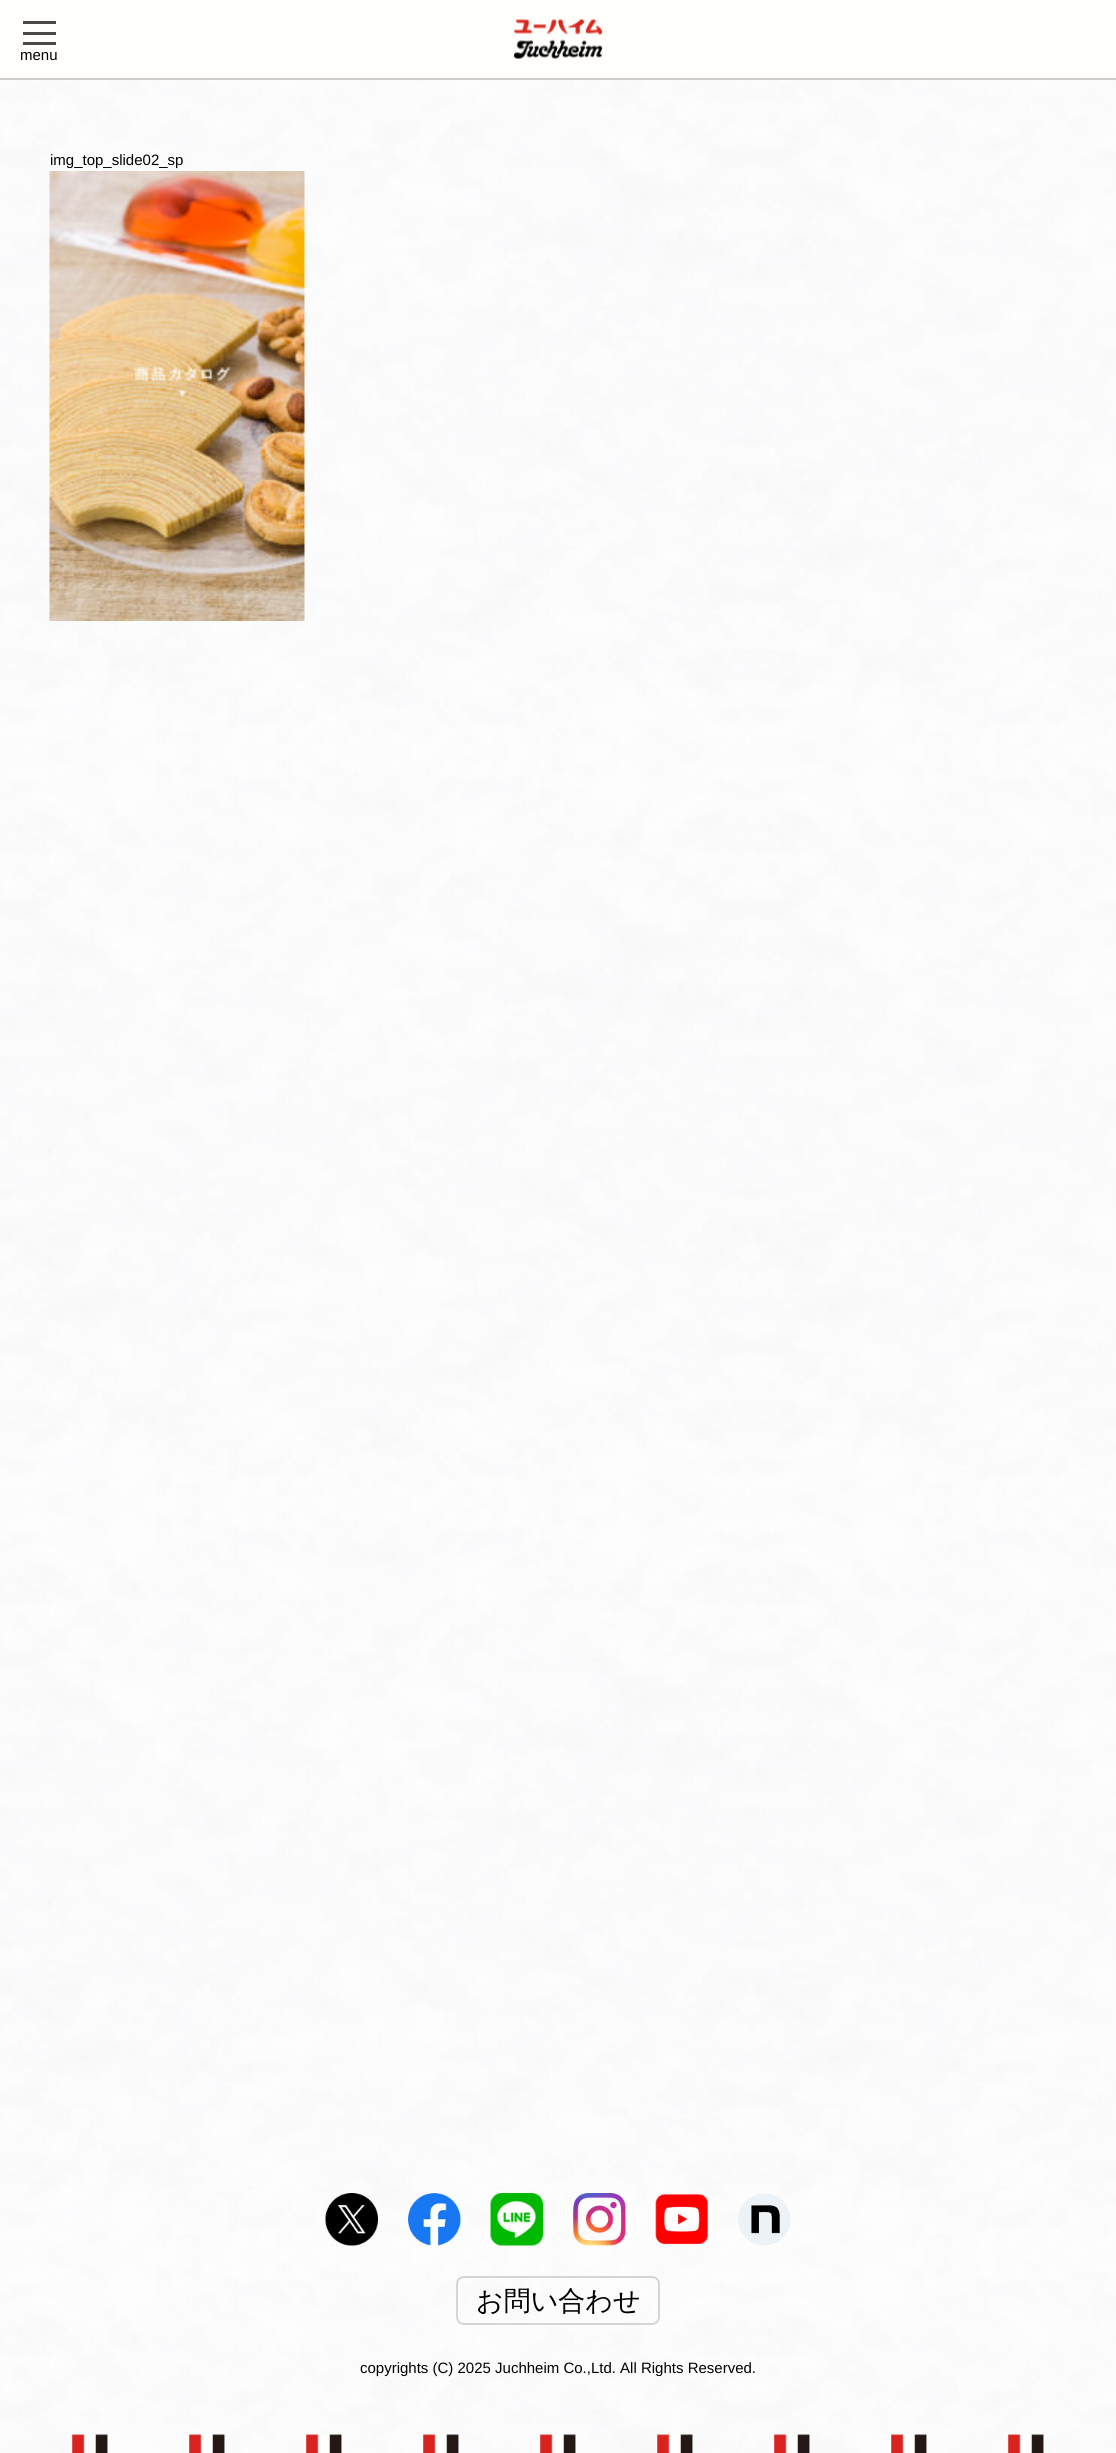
import math
import cairo

surface = cairo.ImageSurface(cairo.Format.RGB24, 1116, 2453)
ctx = cairo.Context(surface)
options = cairo.FontOptions()
options.set_hint_metrics(cairo.HintMetrics.OFF)
options.set_hint_style(cairo.HintStyle.NONE)
ctx.set_font_options(options)
ctx.set_miter_limit(4)


def ink(r, g, b):
    ctx.set_source_rgb(r / 255, g / 255, b / 255)


def write(x, y, s, family, size, color, bold=False, italic=False):
    ctx.select_font_face(family, cairo.FontSlant.ITALIC if italic else cairo.FontSlant.NORMAL, cairo.FontWeight.BOLD if bold else cairo.FontWeight.NORMAL)
    ctx.set_font_size(size)
    ink(*color)
    ctx.move_to(x, y)
    ctx.show_text(s)


def block(x, y, w, h, *color):
    ink(*color)
    ctx.rectangle(x, y, w, h)
    ctx.fill()


def round_path(x, y, w, h, r):
    ctx.new_sub_path()
    for i, (u, v) in enumerate([(x + w - r, y + h - r), (x + r, y + h - r), (x + r, y + r), (x + w - r, y + r)]):
        ctx.arc(u, v, r, i * math.pi / 2, (i + 1) * math.pi / 2)
    ctx.close_path()


def paste(path, x, y, w, h):
    ctx.save()
    ctx.set_source_surface(cairo.ImageSurface.create_from_png(path), x, y)
    ctx.rectangle(x, y, w, h)
    ctx.fill()
    ctx.restore()


s1 = dict(family="Liberation Sans", size=15, color=(0, 0, 0))
s2 = dict(family="WenQuanYi Zen Hei Medium", size=27, color=(0, 0, 0))

ink(255, 255, 255)
ctx.paint()
paste("pic1.png", 0, 80, 1116, 2373)
block(0, 0, 1116, 78, 255, 254, 251)
block(0, 78, 1116, 2, 204, 204, 204)
block(23, 21, 33, 3, 75, 73, 72)
block(23, 32, 33, 3, 75, 73, 72)
block(23, 42, 33, 3, 75, 73, 72)
write(20, 60, "menu", **s1)
paste("pic2.png", 514, 19, 89, 40)
write(50, 165, "img_top_slide02_sp", **s1)
paste("pic3.png", 49, 171, 256, 450)
paste("pic4.png", 72, 2434, 972, 19)
paste("pic5.png", 325, 2193, 53, 53)
paste("pic6.png", 408, 2193, 53, 53)
paste("pic7.png", 490, 2193, 53, 53)
paste("pic8.png", 573, 2193, 53, 53)
paste("pic9.png", 655, 2193, 53, 52)
paste("pic10.png", 738, 2193, 53, 53)
round_path(457, 2277, 202, 47, 7)
ink(213, 213, 213)
ctx.stroke()
write(476, 2310, "お問い合わせ", **s2)
write(360, 2373, "copyrights (C) 2025 Juchheim Co.,Ltd. All Rights Reserved.", **s1)
surface.write_to_png("screenshot.png")
